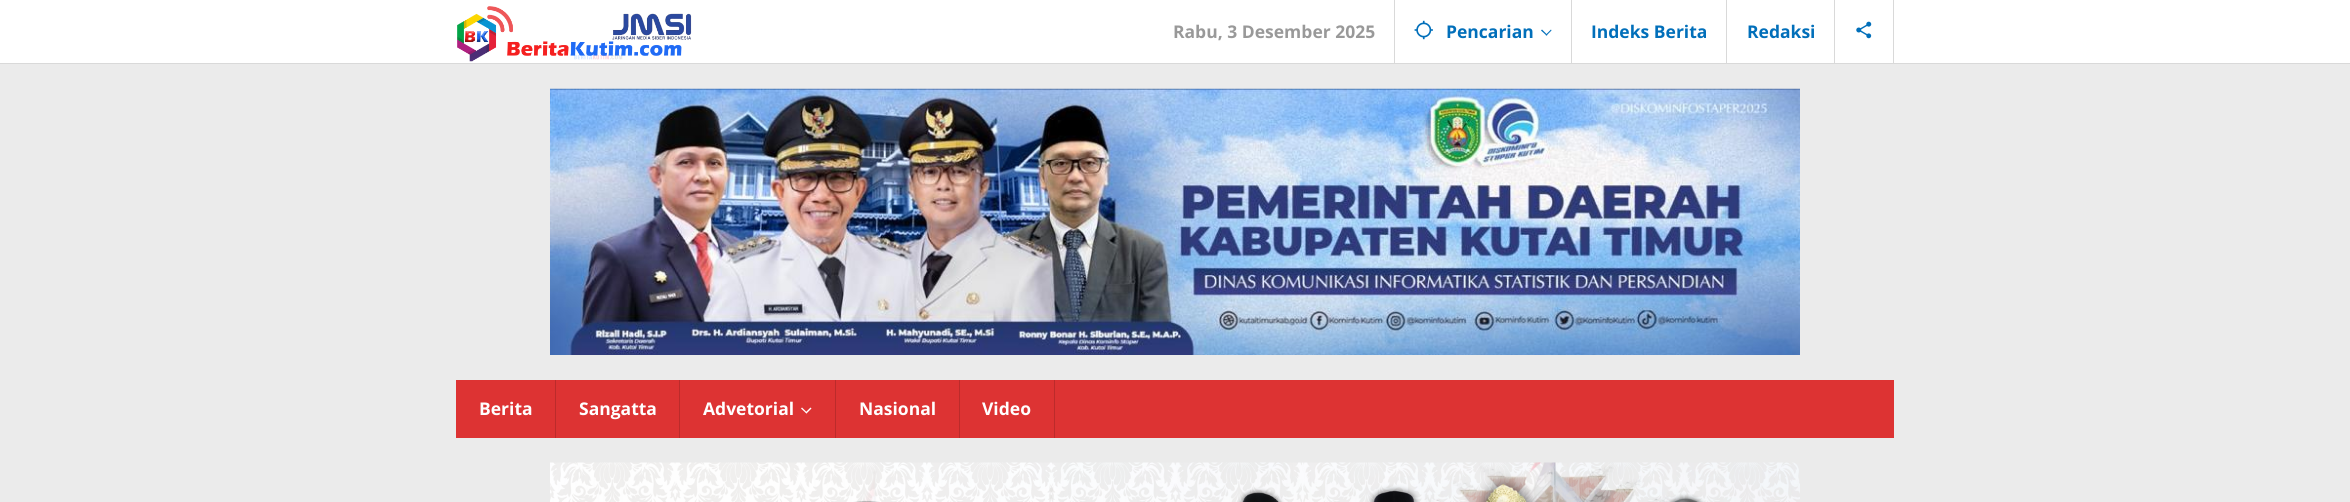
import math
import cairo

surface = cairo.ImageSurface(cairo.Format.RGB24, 2350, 502)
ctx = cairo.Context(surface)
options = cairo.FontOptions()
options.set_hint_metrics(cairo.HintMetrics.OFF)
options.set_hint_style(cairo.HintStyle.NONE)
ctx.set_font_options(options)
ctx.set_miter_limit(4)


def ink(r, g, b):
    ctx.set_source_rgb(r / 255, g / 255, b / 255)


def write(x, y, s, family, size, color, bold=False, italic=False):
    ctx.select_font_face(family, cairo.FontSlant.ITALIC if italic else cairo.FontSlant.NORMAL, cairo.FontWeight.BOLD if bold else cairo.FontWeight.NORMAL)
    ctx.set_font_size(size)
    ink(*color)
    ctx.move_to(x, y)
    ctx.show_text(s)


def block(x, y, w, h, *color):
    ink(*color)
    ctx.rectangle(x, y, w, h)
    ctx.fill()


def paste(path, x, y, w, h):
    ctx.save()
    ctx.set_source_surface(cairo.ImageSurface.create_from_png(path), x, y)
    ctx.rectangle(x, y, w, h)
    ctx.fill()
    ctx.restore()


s1 = dict(family="Open Sans", size=17.5, color=(153, 153, 153), bold=True)
s2 = dict(family="Open Sans", size=17.5, color=(1, 111, 186), bold=True)
s3 = dict(family="Open Sans", size=17.5, color=(255, 255, 255), bold=True)

ink(235, 235, 235)
ctx.paint()
block(0, 0, 2350, 63, 255, 255, 255)
block(0, 63, 2350, 1, 217, 217, 217)
paste("pic1.png", 457, 6, 235, 56)
block(1394, 0, 1, 63, 217, 217, 217)
write(1173, 38, "Rabu, 3 Desember 2025", **s1)
block(1571, 0, 1, 63, 217, 217, 217)
paste("pic2.png", 1414, 20, 19, 20)
write(1446, 38, "Pencarian", **s2)
ctx.new_path()
ctx.move_to(1551, 29.5)
ctx.line_to(1551.5, 30.5)
ctx.line_to(1546.5, 35.5)
ctx.line_to(1545.5, 35)
ctx.close_path()
ctx.fill()
ctx.new_path()
ctx.move_to(1542, 29.5)
ctx.line_to(1547.5, 35)
ctx.line_to(1546.5, 35.5)
ctx.line_to(1541, 30.5)
ctx.close_path()
ctx.fill()
block(1726, 0, 1, 63, 217, 217, 217)
write(1591, 38, "Indeks Berita", **s2)
block(1834, 0, 1, 63, 217, 217, 217)
write(1747, 38, "Redaksi", **s2)
block(1893, 0, 1, 63, 217, 217, 217)
paste("pic3.png", 1856, 21, 16, 18)
paste("pic4.png", 550, 88, 1250, 267)
block(456, 380, 1438, 58, 221, 51, 51)
block(555, 380, 1, 58, 188, 43, 43)
write(479, 415, "Berita", **s3)
block(679, 380, 1, 58, 188, 43, 43)
write(579, 415, "Sangatta", **s3)
block(835, 380, 1, 58, 188, 43, 43)
write(703, 415, "Advetorial", **s3)
ctx.new_path()
ctx.move_to(810.5, 407.5)
ctx.line_to(811.5, 408.5)
ctx.line_to(806.5, 413.5)
ctx.line_to(805.5, 412.5)
ctx.close_path()
ctx.fill()
ctx.new_path()
ctx.move_to(802, 407.5)
ctx.line_to(807, 412.5)
ctx.line_to(806.5, 413.5)
ctx.line_to(801, 408.5)
ctx.close_path()
ctx.fill()
block(959, 380, 1, 58, 188, 43, 43)
write(859, 415, "Nasional", **s3)
block(1054, 380, 1, 58, 188, 43, 43)
write(982, 415, "Video", **s3)
paste("pic5.png", 550, 462, 1250, 40)
surface.write_to_png("screenshot.png")
